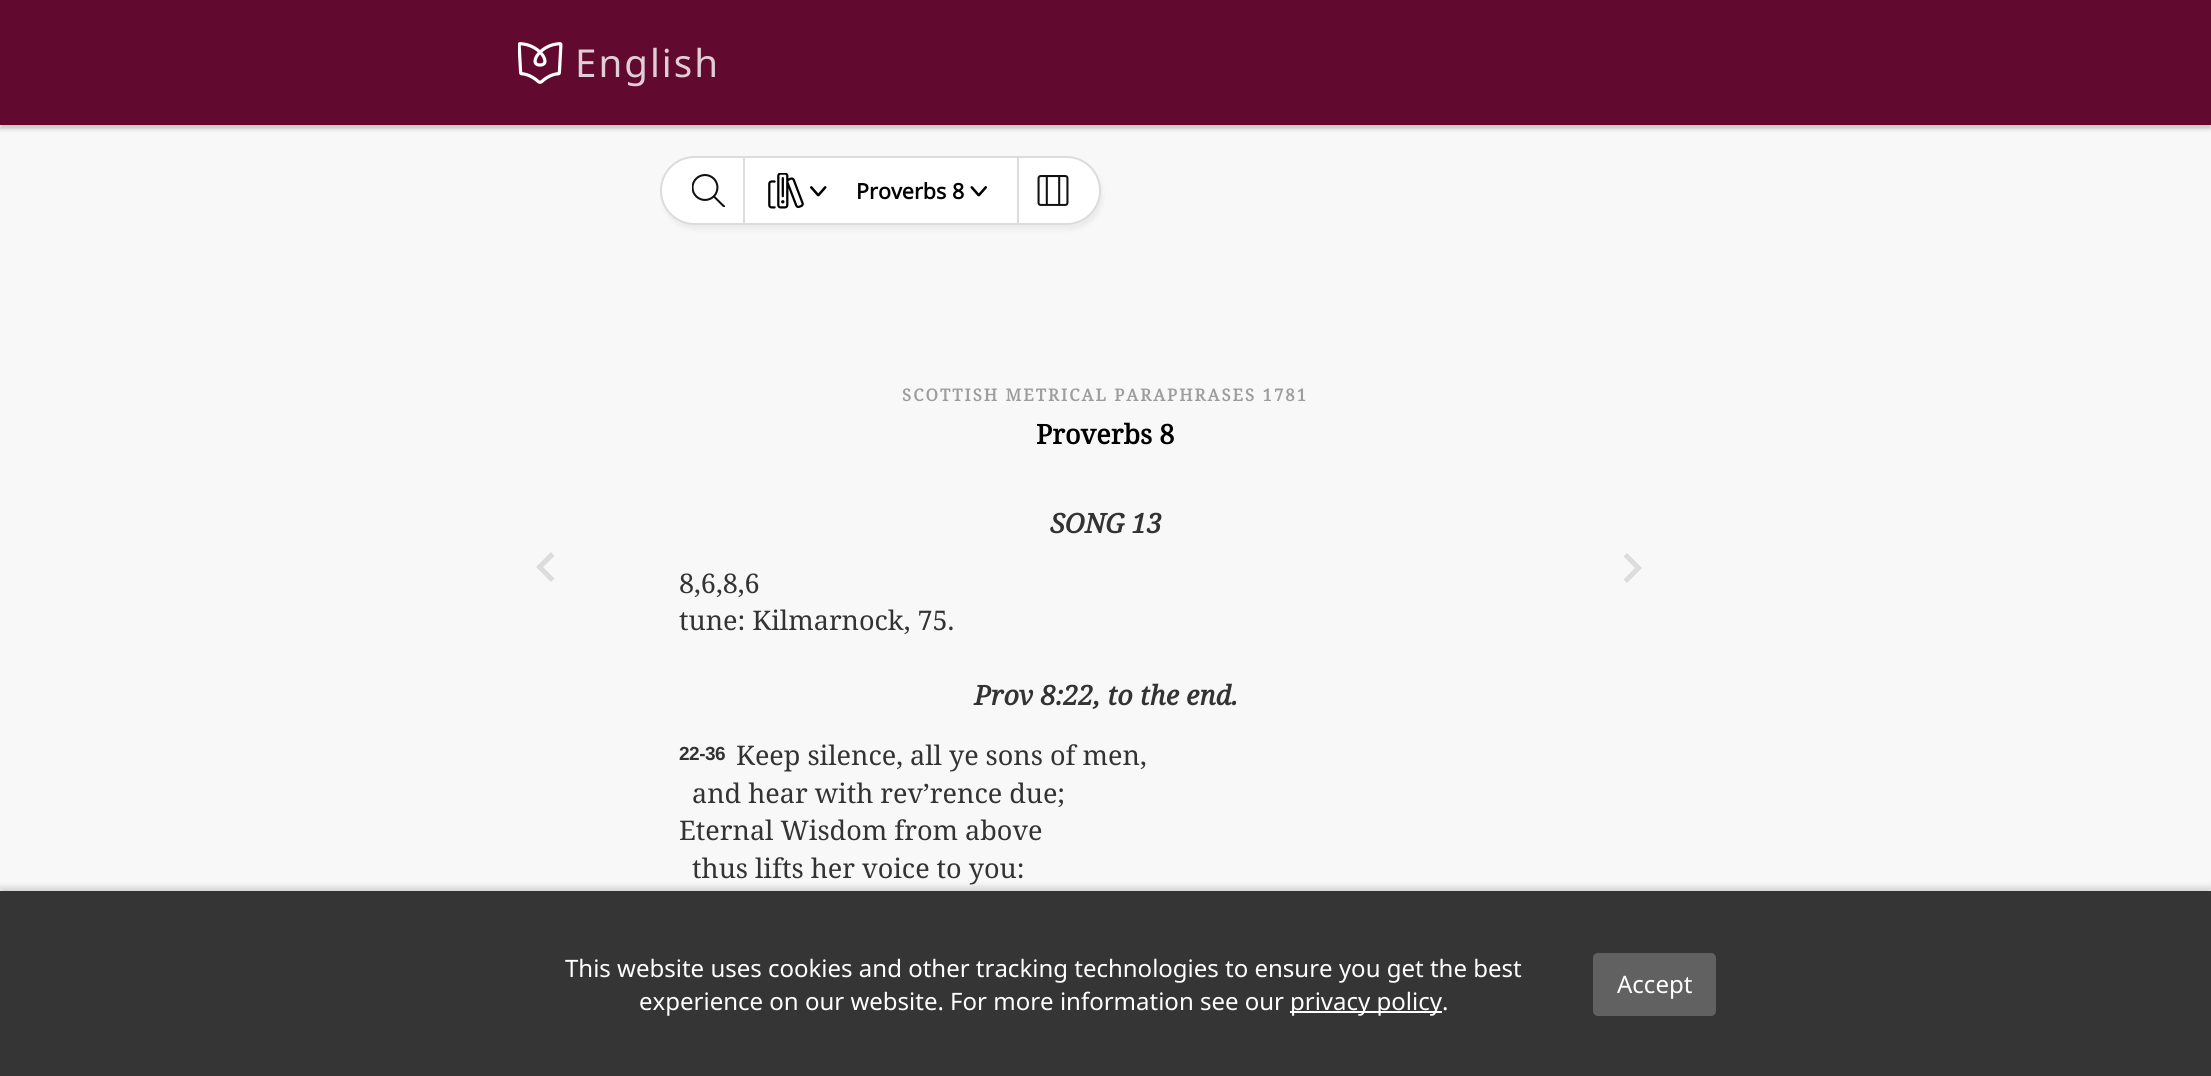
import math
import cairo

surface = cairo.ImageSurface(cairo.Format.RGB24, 2211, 1076)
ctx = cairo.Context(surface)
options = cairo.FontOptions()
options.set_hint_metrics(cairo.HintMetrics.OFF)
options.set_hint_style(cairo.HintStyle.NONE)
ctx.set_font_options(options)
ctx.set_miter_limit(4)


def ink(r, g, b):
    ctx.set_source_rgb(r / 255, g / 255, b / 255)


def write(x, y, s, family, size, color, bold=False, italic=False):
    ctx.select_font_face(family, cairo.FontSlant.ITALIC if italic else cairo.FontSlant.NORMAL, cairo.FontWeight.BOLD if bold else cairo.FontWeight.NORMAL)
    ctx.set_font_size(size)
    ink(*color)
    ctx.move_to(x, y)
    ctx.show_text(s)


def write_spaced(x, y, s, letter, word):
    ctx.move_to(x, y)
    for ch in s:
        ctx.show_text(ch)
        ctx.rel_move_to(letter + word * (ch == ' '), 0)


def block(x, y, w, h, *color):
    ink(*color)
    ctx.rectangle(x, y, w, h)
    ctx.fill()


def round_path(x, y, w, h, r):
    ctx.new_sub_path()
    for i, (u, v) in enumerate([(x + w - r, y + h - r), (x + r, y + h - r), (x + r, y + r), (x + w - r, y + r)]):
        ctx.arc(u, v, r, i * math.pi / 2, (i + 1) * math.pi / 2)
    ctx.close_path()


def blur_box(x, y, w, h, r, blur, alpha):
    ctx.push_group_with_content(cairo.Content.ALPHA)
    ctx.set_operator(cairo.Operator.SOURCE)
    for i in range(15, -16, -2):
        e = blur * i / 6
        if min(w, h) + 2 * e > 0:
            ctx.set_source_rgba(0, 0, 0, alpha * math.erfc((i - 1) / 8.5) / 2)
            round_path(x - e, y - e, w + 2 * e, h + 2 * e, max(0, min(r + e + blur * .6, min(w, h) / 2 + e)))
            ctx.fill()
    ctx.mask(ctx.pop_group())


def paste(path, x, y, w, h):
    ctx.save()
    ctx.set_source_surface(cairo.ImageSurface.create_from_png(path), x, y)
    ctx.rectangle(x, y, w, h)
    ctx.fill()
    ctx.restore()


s1 = dict(family="Noto Sans", size=21.5, color=(0, 0, 0), bold=True)
s2 = dict(family="Noto Serif", size=27, color=(0, 0, 0), bold=True)
s3 = dict(family="Noto Serif", size=27, color=(51, 51, 51), bold=True, italic=True)
s4 = dict(family="Noto Serif", size=27, color=(51, 51, 51))
s5 = dict(family="Noto Sans", size=24, color=(255, 255, 255))

ink(248, 248, 248)
ctx.paint()
ink(0, 0, 0)
blur_box(0, 5, 2211, 124, 0, 2, 0.2)
block(0, 0, 2211, 125, 97, 9, 47)
paste("pic1.png", 518, 42, 45, 42)
ctx.select_font_face("Noto Sans")
ctx.set_font_size(38.5)
ink(223, 206, 213)
write_spaced(575, 77, "English", 2, 0)
ink(0, 0, 0)
blur_box(662, 161, 441, 69, 34.5, 2, 0.05)
ink(255, 255, 255)
round_path(661, 157, 439, 67, 33.5)
ctx.fill_preserve()
ink(220, 220, 220)
ctx.stroke()
block(743, 158, 2, 66, 220, 220, 220)
paste("pic2.png", 692, 174, 33, 33)
paste("pic3.png", 768, 173, 36, 36)
paste("pic4.png", 810, 186, 17, 11)
write(856, 199, "Proverbs 8", **s1)
paste("pic5.png", 970, 186, 17, 11)
block(1017, 158, 2, 66, 220, 220, 220)
paste("pic6.png", 1037, 175, 32, 31)
ctx.new_path()
ctx.move_to(554.5, 578.5)
ctx.line_to(543, 567)
ctx.line_to(554.5, 556)
ctx.line_to(551, 552)
ctx.line_to(536, 567)
ctx.line_to(551, 582)
ctx.close_path()
ctx.fill()
ctx.select_font_face("Noto Serif", cairo.FontSlant.NORMAL, cairo.FontWeight.BOLD)
ctx.set_font_size(16.8)
ink(157, 157, 157)
write_spaced(902, 401, "SCOTTISH METRICAL PARAPHRASES 1781", 2, 0)
write(1036, 444, "Proverbs 8", **s2)
write(1050, 533, "SONG 13", **s3)
write(679, 593, "8,6,8,6", **s4)
write(679, 630, "tune: Kilmarnock, 75.", **s4)
write(974, 705, "Prov 8:22, to the end.", **s3)
ctx.select_font_face("Liberation Sans", cairo.FontSlant.NORMAL, cairo.FontWeight.BOLD)
ctx.set_font_size(19)
write_spaced(679, 760, "22-36", -0.5, 0)
write(736, 765, "Keep silence, all ye sons of men,", **s4)
write(692, 803, "and hear with rev’rence due;", **s4)
write(679, 840, "Eternal Wisdom from above", **s4)
write(692, 878, "thus lifts her voice to you:", **s4)
ink(220, 220, 220)
ctx.new_path()
ctx.move_to(1623.5, 579.5)
ctx.line_to(1635, 568)
ctx.line_to(1623.5, 556.5)
ctx.line_to(1627, 553)
ctx.line_to(1642, 568)
ctx.line_to(1627, 583)
ctx.close_path()
ctx.fill()
ink(0, 0, 0)
blur_box(0, 887, 2211, 186, 0, 3, 0.15)
block(0, 891, 2211, 185, 53, 53, 53)
write(565, 977, "This website uses cookies and other tracking technologies to ensure you get the best", **s5)
write(639, 1010, "experience on our website. For more information see our", **s5)
block(1290, 1011, 152, 2, 255, 255, 255)
write(1290, 1010, "privacy policy.", **s5)
ink(97, 97, 97)
round_path(1593, 953, 123, 63, 5)
ctx.fill()
write(1617, 993, "Accept", **s5)
surface.write_to_png("screenshot.png")
